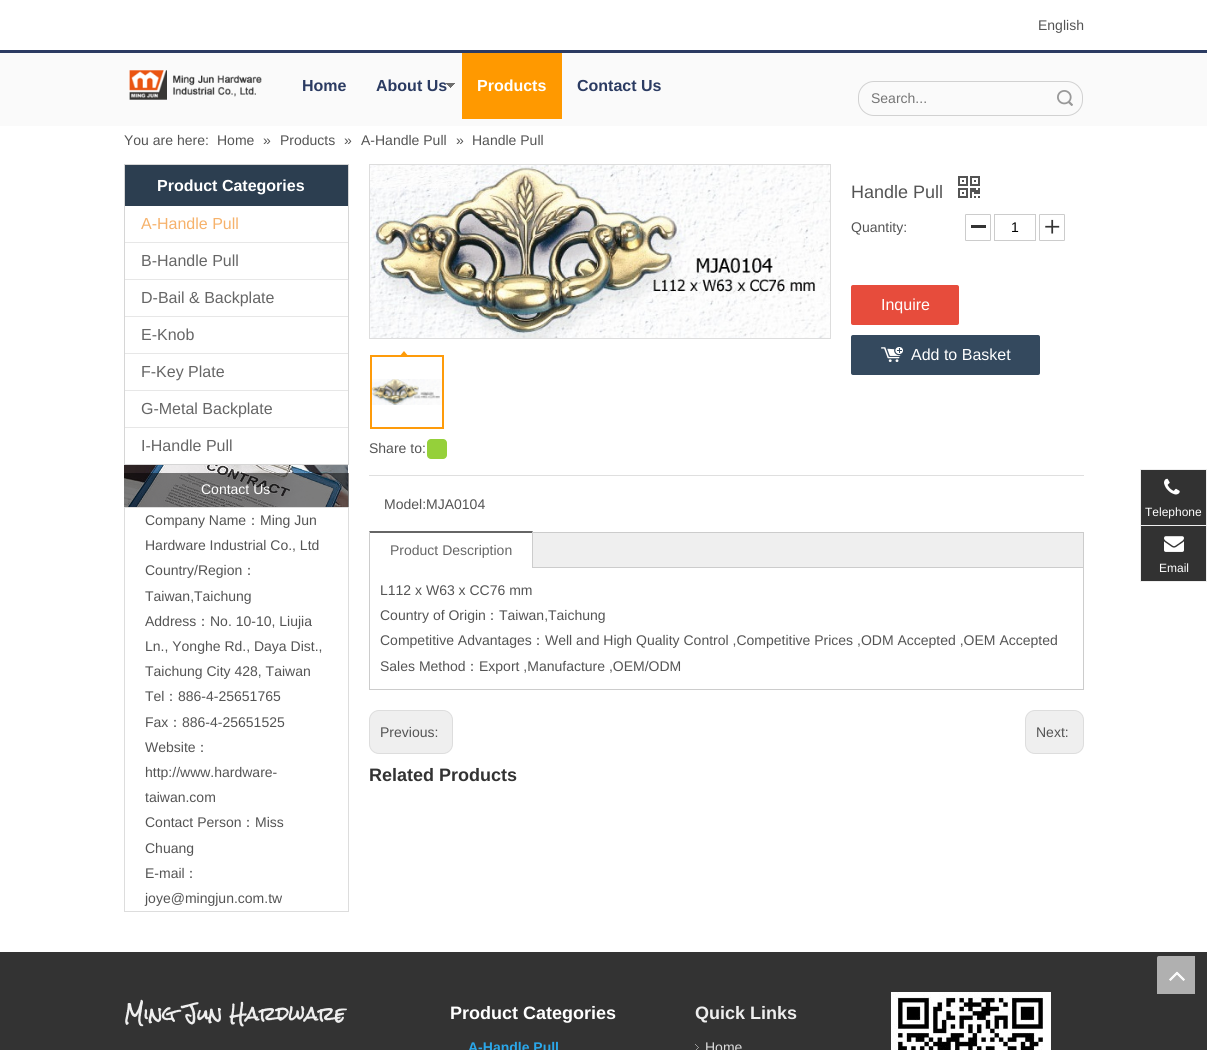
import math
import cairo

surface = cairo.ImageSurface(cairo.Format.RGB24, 1207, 1050)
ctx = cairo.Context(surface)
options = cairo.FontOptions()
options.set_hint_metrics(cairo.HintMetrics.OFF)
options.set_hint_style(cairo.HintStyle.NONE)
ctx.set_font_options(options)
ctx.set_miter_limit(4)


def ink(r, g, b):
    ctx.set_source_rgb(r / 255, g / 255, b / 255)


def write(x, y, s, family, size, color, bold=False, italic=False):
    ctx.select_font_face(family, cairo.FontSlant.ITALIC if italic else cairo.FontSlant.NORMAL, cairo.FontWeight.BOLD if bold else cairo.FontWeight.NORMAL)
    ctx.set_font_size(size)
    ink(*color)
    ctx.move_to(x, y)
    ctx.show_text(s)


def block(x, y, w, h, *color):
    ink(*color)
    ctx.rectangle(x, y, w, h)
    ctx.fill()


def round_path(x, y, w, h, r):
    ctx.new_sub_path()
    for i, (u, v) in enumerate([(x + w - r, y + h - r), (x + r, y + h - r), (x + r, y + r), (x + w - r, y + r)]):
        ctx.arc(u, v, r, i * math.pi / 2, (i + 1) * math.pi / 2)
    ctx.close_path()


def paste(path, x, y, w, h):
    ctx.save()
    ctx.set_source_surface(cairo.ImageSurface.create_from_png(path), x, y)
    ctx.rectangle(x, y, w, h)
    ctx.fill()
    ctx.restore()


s1 = dict(family="Liberation Sans", size=14, color=(84, 84, 84))
s2 = dict(family="Liberation Sans", size=16, color=(43, 59, 98), bold=True)
s3 = dict(family="Liberation Sans", size=16, color=(255, 255, 255), bold=True)
s4 = dict(family="Liberation Sans", size=14, color=(117, 117, 117))
s5 = dict(family="Liberation Sans", size=16, color=(246, 178, 107))
s6 = dict(family="Liberation Sans", size=16, color=(102, 102, 102))
s7 = dict(family="Liberation Sans", size=14, color=(255, 255, 255))
s8 = dict(family="WenQuanYi Zen Hei Medium", size=14, color=(84, 84, 84))
s9 = dict(family="Liberation Sans", size=18, color=(84, 84, 84))
s10 = dict(family="Liberation Sans", size=14, color=(0, 0, 0))
s11 = dict(family="Liberation Sans", size=16, color=(255, 255, 255))
s12 = dict(family="Liberation Sans", size=14, color=(102, 102, 102))
s13 = dict(family="Liberation Sans", size=18, color=(51, 51, 51), bold=True)
s14 = dict(family="Liberation Sans", size=12, color=(255, 255, 255))
s15 = dict(family="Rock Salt", size=18, color=(238, 238, 238), bold=True)
s16 = dict(family="Liberation Sans", size=18, color=(255, 255, 255), bold=True)
s17 = dict(family="Liberation Sans", size=14, color=(42, 167, 234), bold=True)
s18 = dict(family="Liberation Sans", size=18, color=(238, 238, 238), bold=True)
s19 = dict(family="Liberation Sans", size=14, color=(221, 221, 221))

ink(255, 255, 255)
ctx.paint()
write(1038, 30, "English", **s1)
block(0, 53, 1207, 73, 250, 250, 250)
block(0, 50, 1207, 3, 43, 59, 98)
paste("pic1.png", 129, 70, 133, 30)
write(302, 91, "Home", **s2)
paste("pic2.png", 446, 83, 9, 5)
write(376, 91, "About Us", **s2)
block(462, 53, 100, 66, 255, 153, 0)
write(477, 91, "Products", **s3)
write(577, 91, "Contact Us", **s2)
round_path(858.5, 81.5, 224, 34, 15.5)
ink(209, 209, 209)
ctx.set_line_width(1)
ctx.stroke()
write(871, 103, "Search...", **s4)
paste("pic3.png", 1057, 90, 16, 16)
write(124, 145, "You are here:", **s1)
write(217, 145, "Home", **s1)
write(263, 145, "»", **s1)
write(280, 145, "Products", **s1)
write(344, 145, "»", **s1)
write(361, 145, "A-Handle Pull", **s1)
write(456, 145, "»", **s1)
write(472, 145, "Handle Pull", **s1)
ctx.rectangle(124.5, 164.5, 224, 300)
ink(214, 214, 214)
ctx.stroke()
block(125, 165, 223, 41, 44, 62, 80)
write(157, 191, "Product Categories", **s3)
write(141, 229, "A-Handle Pull", **s5)
block(125, 242, 223, 1, 231, 231, 231)
write(141, 266, "B-Handle Pull", **s6)
block(125, 279, 223, 1, 231, 231, 231)
write(141, 303, "D-Bail & Backplate", **s6)
block(125, 316, 223, 1, 231, 231, 231)
write(141, 340, "E-Knob", **s6)
block(125, 353, 223, 1, 231, 231, 231)
write(141, 377, "F-Key Plate", **s6)
block(125, 390, 223, 1, 231, 231, 231)
write(141, 414, "G-Metal Backplate", **s6)
block(125, 427, 223, 1, 231, 231, 231)
write(141, 451, "I-Handle Pull", **s6)
paste("pic4.png", 124, 465, 224, 42)
ctx.set_source_rgba(0, 0, 0, 0.5)
ctx.rectangle(124, 473, 225, 34)
ctx.fill()
write(201, 494, "Contact Us", **s7)
ctx.rectangle(124.5, 507.5, 224, 404)
ink(221, 221, 221)
ctx.stroke()
write(145, 525, "Company Name", **s1)
write(246, 525, "：", **s8)
write(260, 525, "Ming Jun", **s1)
write(145, 550, "Hardware Industrial Co., Ltd", **s1)
write(145, 575, "Country/Region", **s1)
write(242, 575, "：", **s8)
write(145, 601, "Taiwan,Taichung", **s1)
write(145, 626, "Address", **s1)
write(196, 626, "：", **s8)
write(210, 626, "No. 10-10, Liujia", **s1)
write(145, 651, "Ln., Yonghe Rd., Daya Dist.,", **s1)
write(145, 676, "Taichung City 428, Taiwan", **s1)
write(145, 701, "Tel", **s1)
write(164, 701, "：", **s8)
write(178, 701, "886-4-25651765", **s1)
write(145, 727, "Fax", **s1)
write(168, 727, "：", **s8)
write(182, 727, "886-4-25651525", **s1)
write(145, 752, "Website", **s1)
write(195, 752, "：", **s8)
write(145, 777, "http://www.hardware-", **s1)
write(145, 802, "taiwan.com", **s1)
write(145, 827, "Contact Person", **s1)
write(241, 827, "：", **s8)
write(255, 827, "Miss", **s1)
write(145, 853, "Chuang", **s1)
write(145, 878, "E-mail", **s1)
write(184, 878, "：", **s8)
write(145, 903, "joye@mingjun.com.tw", **s1)
write(851, 198, "Handle Pull", **s9)
paste("pic5.png", 958, 176, 22, 22)
write(851, 232, "Quantity:", **s1)
block(971, 225, 15, 3, 51, 51, 51)
round_path(965.5, 214.5, 25, 26, 0.5)
ink(204, 204, 204)
ctx.stroke()
ctx.rectangle(994.5, 214.5, 41, 26)
ctx.stroke()
write(1011, 232, "1", **s10)
paste("pic6.png", 1045, 219, 15, 15)
round_path(1039.5, 214.5, 25, 26, 0.5)
ink(204, 204, 204)
ctx.stroke()
ink(231, 76, 60)
round_path(851, 285, 108, 40, 2)
ctx.fill()
write(881, 310, "Inquire", **s11)
ink(52, 73, 94)
round_path(851, 335, 189, 40, 2)
ctx.fill()
paste("pic7.png", 881, 347, 22, 15)
write(911, 360, "Add to Basket", **s11)
ctx.rectangle(369.5, 164.5, 461, 174)
ink(221, 221, 221)
ctx.stroke()
paste("pic8.png", 370, 165, 460, 173)
ctx.rectangle(371, 356, 72, 72)
ink(254, 155, 10)
ctx.set_line_width(2)
ctx.stroke()
ctx.new_path()
ctx.move_to(409, 357)
ctx.line_to(399, 357)
ctx.line_to(404, 351)
ctx.close_path()
ctx.fill()
paste("pic9.png", 372, 379, 70, 26)
write(369, 453, "Share to:", **s1)
ink(149, 208, 58)
round_path(427, 439, 20, 20, 4)
ctx.fill()
block(369, 475, 715, 1, 223, 223, 223)
write(384, 509, "Model:MJA0104", **s1)
ctx.rectangle(369.5, 532.5, 714, 157)
ink(204, 204, 204)
ctx.set_line_width(1)
ctx.stroke()
block(533, 533, 550, 34, 239, 239, 239)
block(533, 567, 550, 1, 204, 204, 204)
block(369, 532, 164, 36, 255, 255, 255)
ink(102, 102, 102)
ctx.new_path()
ctx.move_to(369, 531)
ctx.line_to(533, 531)
ctx.line_to(532, 533)
ctx.line_to(370, 533)
ctx.close_path()
ctx.fill()
ink(204, 204, 204)
ctx.new_path()
ctx.move_to(533, 531)
ctx.line_to(533, 568)
ctx.line_to(532, 568)
ctx.line_to(532, 533)
ctx.close_path()
ctx.fill()
ctx.new_path()
ctx.move_to(369, 568)
ctx.line_to(369, 531)
ctx.line_to(370, 533)
ctx.line_to(370, 568)
ctx.close_path()
ctx.fill()
write(390, 555, "Product Description", **s12)
write(380, 595, "L112 x W63 x CC76 mm", **s1)
write(380, 620, "Country of Origin", **s1)
write(485, 620, "：", **s8)
write(499, 620, "Taiwan,Taichung", **s1)
write(380, 645, "Competitive Advantages", **s1)
write(531, 645, "：", **s8)
write(545, 645, "Well and High Quality Control ,Competitive Prices ,ODM Accepted ,OEM Accepted", **s1)
write(380, 671, "Sales Method", **s1)
write(465, 671, "：", **s8)
write(479, 671, "Export ,Manufacture ,OEM/ODM", **s1)
ink(239, 239, 239)
round_path(369.5, 710.5, 83, 43, 9.5)
ctx.fill_preserve()
ink(221, 221, 221)
ctx.stroke()
write(380, 737, "Previous:", **s1)
ink(239, 239, 239)
round_path(1025.5, 710.5, 58, 43, 9.5)
ctx.fill_preserve()
ink(221, 221, 221)
ctx.stroke()
write(1036, 737, "Next:", **s1)
write(369, 781, "Related Products", **s13)
block(0, 952, 1207, 98, 51, 51, 51)
block(1141, 470, 65, 55, 50, 50, 50)
block(1140, 469, 67, 1, 238, 238, 238)
block(1206, 469, 1, 56, 238, 238, 238)
block(1140, 469, 1, 56, 238, 238, 238)
paste("pic10.png", 1164, 478, 16, 17)
write(1145, 516, "Telephone", **s14)
ink(50, 50, 50)
ctx.rectangle(1140.5, 525.5, 66, 56)
ctx.fill_preserve()
ink(238, 238, 238)
ctx.stroke()
paste("pic11.png", 1164, 536, 20, 16)
write(1159, 572, "Email", **s14)
write(124, 1021, "Ming Jun Hardware", **s15)
write(450, 1019, "Product Categories", **s16)
write(468, 1052, "A-Handle Pull", **s17)
write(695, 1019, "Quick Links", **s18)
paste("pic12.png", 695, 1044, 4, 6)
write(705, 1052, "Home", **s19)
paste("pic13.png", 891, 992, 160, 58)
paste("pic14.png", 1157, 956, 38, 38)
surface.write_to_png("screenshot.png")
